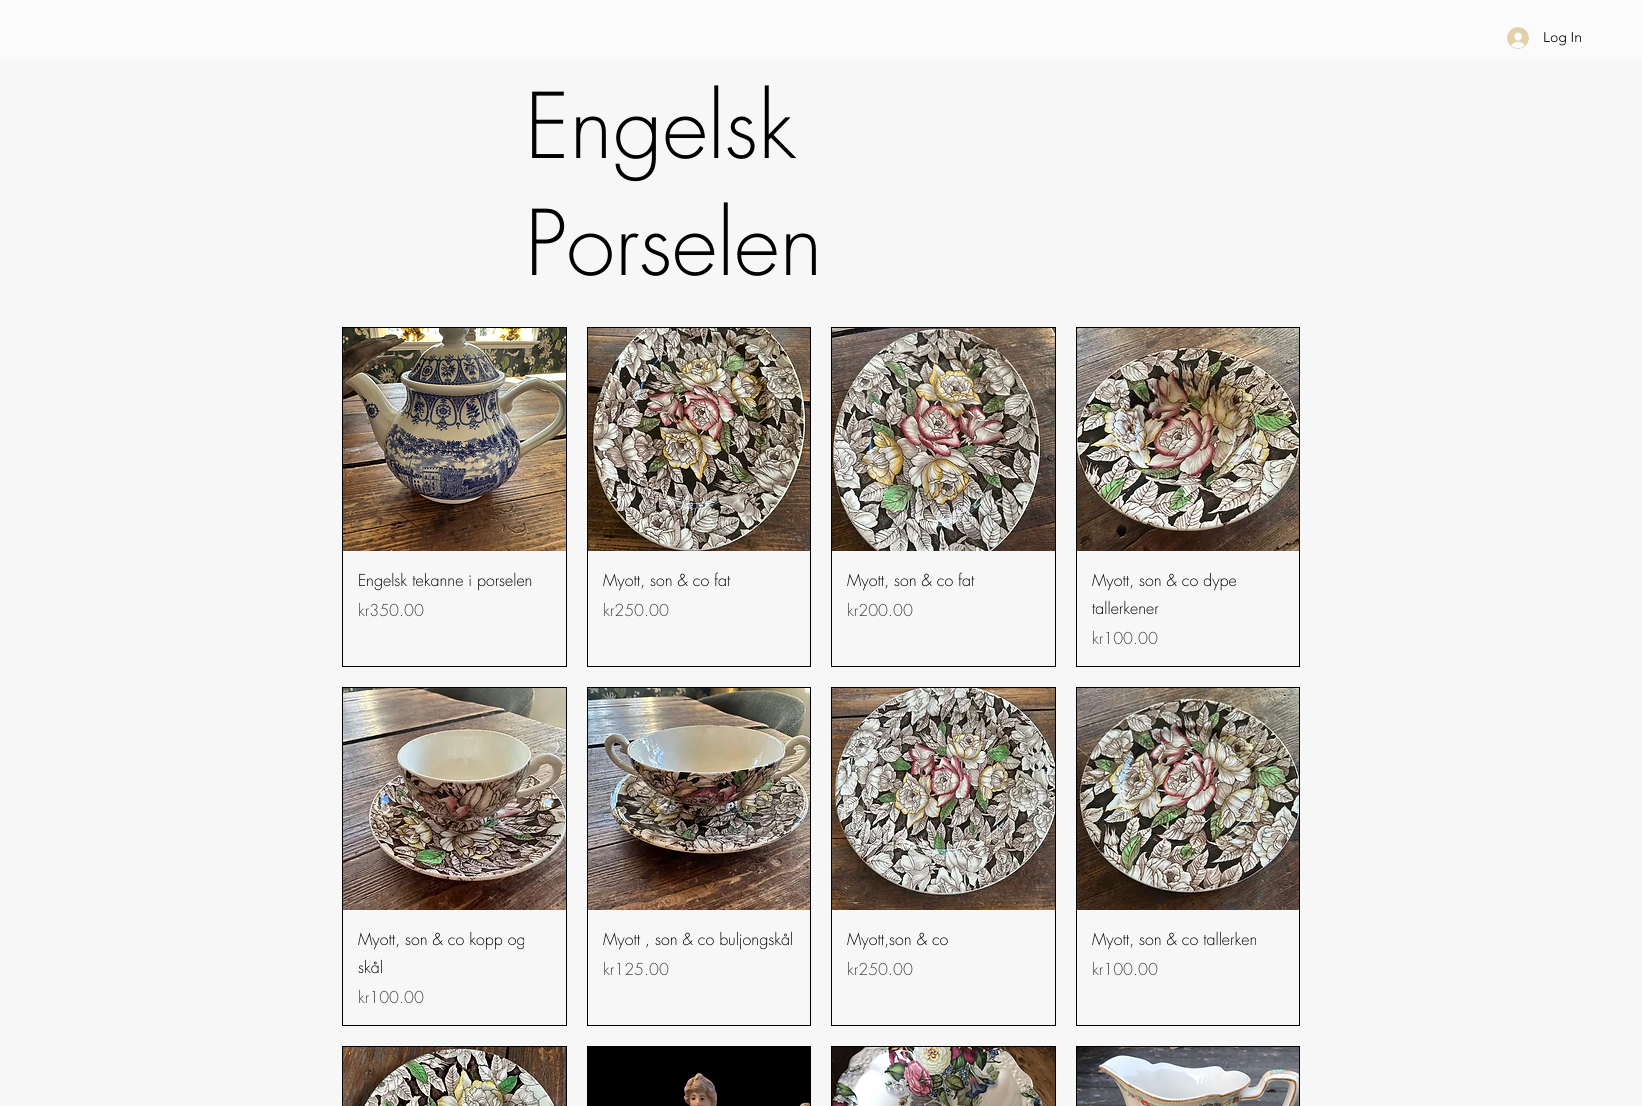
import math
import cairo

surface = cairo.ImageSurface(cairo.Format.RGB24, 1642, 1106)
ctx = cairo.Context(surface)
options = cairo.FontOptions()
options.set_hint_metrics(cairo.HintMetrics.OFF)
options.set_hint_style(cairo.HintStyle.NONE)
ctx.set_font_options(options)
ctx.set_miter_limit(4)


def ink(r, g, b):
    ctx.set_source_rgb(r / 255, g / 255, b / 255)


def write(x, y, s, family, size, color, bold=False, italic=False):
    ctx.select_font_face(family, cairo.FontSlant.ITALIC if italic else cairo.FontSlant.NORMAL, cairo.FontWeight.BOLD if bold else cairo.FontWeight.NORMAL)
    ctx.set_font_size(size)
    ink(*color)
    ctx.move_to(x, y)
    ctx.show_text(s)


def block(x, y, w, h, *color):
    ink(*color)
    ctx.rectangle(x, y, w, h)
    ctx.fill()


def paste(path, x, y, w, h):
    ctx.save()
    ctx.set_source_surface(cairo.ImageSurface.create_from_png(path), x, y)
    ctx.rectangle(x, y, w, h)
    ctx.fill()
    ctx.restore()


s1 = dict(family="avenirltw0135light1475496 Light", size=14, color=(0, 0, 0))
s2 = dict(family="futura Light", size=88, color=(0, 0, 0))
s3 = dict(family="futura Light", size=16, color=(0, 0, 0))
s4 = dict(family="futura Light", size=16, color=(64, 64, 64))

ink(247, 247, 247)
ctx.paint()
block(0, 0, 1642, 60, 251, 251, 251)
paste("pic1.png", 1507, 27, 22, 22)
write(1543, 42, "Log In", **s1)
write(525, 158, "Engelsk", **s2)
write(525, 275, "Porselen", **s2)
ctx.rectangle(342.5, 327.5, 224, 339)
ctx.set_line_width(1)
ctx.stroke()
paste("pic2.png", 343, 328, 223, 223)
write(358, 586, "Engelsk tekanne i porselen", **s3)
write(358, 616, "kr350.00", **s4)
ctx.rectangle(587.5, 327.5, 223, 339)
ink(0, 0, 0)
ctx.stroke()
paste("pic3.png", 588, 328, 222, 223)
write(603, 586, "Myott, son & co fat", **s3)
write(603, 616, "kr250.00", **s4)
ctx.rectangle(831.5, 327.5, 224, 339)
ink(0, 0, 0)
ctx.stroke()
paste("pic4.png", 832, 328, 223, 223)
write(847, 586, "Myott, son & co fat", **s3)
write(847, 616, "kr200.00", **s4)
ctx.rectangle(1076.5, 327.5, 223, 339)
ink(0, 0, 0)
ctx.stroke()
paste("pic5.png", 1077, 328, 222, 223)
write(1092, 586, "Myott, son & co dype", **s3)
write(1092, 614, "tallerkener", **s3)
write(1092, 644, "kr100.00", **s4)
ctx.rectangle(342.5, 687.5, 224, 338)
ink(0, 0, 0)
ctx.stroke()
paste("pic6.png", 343, 688, 223, 222)
write(358, 945, "Myott, son & co kopp og", **s3)
write(358, 973, "skål", **s3)
write(358, 1003, "kr100.00", **s4)
ctx.rectangle(587.5, 687.5, 223, 338)
ink(0, 0, 0)
ctx.stroke()
paste("pic7.png", 588, 688, 222, 222)
write(603, 945, "Myott , son & co buljongskål", **s3)
write(603, 975, "kr125.00", **s4)
ctx.rectangle(831.5, 687.5, 224, 338)
ink(0, 0, 0)
ctx.stroke()
paste("pic8.png", 832, 688, 223, 222)
write(847, 945, "Myott,son & co", **s3)
write(847, 975, "kr250.00", **s4)
ctx.rectangle(1076.5, 687.5, 223, 338)
ink(0, 0, 0)
ctx.stroke()
paste("pic9.png", 1077, 688, 222, 222)
write(1092, 945, "Myott, son & co tallerken", **s3)
write(1092, 975, "kr100.00", **s4)
ctx.rectangle(342.5, 1046.5, 224, 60)
ink(0, 0, 0)
ctx.stroke()
paste("pic10.png", 343, 1047, 223, 59)
ctx.rectangle(587.5, 1046.5, 223, 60)
ctx.stroke()
paste("pic11.png", 588, 1047, 222, 59)
ctx.rectangle(831.5, 1046.5, 224, 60)
ctx.stroke()
paste("pic12.png", 832, 1047, 223, 59)
ctx.rectangle(1076.5, 1046.5, 223, 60)
ctx.stroke()
paste("pic13.png", 1077, 1047, 222, 59)
surface.write_to_png("screenshot.png")
